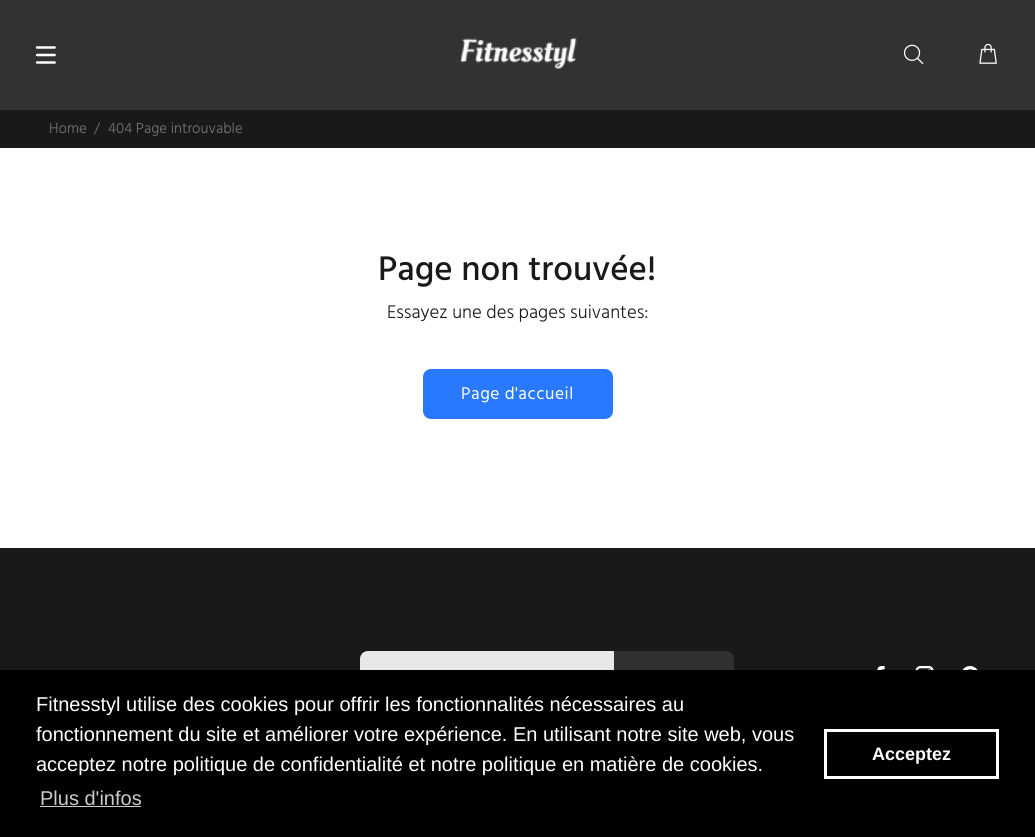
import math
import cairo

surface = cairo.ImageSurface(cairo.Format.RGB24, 1035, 837)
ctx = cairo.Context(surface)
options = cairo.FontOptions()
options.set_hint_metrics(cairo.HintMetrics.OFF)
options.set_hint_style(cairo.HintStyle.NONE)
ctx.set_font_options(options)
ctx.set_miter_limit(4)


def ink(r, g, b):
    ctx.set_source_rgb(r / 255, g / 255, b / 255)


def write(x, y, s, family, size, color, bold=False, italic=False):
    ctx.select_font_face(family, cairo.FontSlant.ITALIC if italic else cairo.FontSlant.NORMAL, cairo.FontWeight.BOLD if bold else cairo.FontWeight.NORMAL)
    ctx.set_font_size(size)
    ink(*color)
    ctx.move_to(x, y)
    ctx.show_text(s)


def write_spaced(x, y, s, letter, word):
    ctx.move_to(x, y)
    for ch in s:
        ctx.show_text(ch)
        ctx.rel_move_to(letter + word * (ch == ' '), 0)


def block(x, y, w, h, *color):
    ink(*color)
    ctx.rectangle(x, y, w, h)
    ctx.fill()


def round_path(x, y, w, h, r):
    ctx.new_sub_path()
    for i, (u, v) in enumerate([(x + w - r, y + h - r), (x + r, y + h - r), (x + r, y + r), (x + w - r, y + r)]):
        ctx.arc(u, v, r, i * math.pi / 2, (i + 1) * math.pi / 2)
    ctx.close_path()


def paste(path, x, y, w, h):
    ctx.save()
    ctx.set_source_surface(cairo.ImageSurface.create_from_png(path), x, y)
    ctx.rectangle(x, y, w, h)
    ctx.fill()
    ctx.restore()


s1 = dict(family="Hind Light", size=15, color=(119, 119, 119))
s2 = dict(family="Hind Medium", size=35, color=(25, 25, 25))
s3 = dict(family="Hind Light", size=18.75, color=(25, 25, 25))
s4 = dict(family="Liberation Sans", size=20, color=(255, 255, 255))
s5 = dict(family="Liberation Sans", size=20, color=(204, 204, 204))
s6 = dict(family="Liberation Sans", size=18, color=(255, 255, 255), bold=True)

ink(255, 255, 255)
ctx.paint()
block(0, 0, 1035, 110, 50, 50, 50)
paste("pic1.png", 35, 46, 21, 18)
paste("pic2.png", 460, 37, 117, 32)
paste("pic3.png", 903, 44, 21, 21)
paste("pic4.png", 979, 43, 18, 21)
block(0, 110, 1035, 38, 25, 25, 25)
write(49, 133, "Home", **s1)
write(94, 133, "/", **s1)
write(108, 133, "404 Page introuvable", **s1)
write(378, 280, "Page non trouvée!", **s2)
write(387, 318, "Essayez une des pages suivantes:", **s3)
ink(40, 121, 254)
round_path(423, 369, 190, 50, 8)
ctx.fill()
ctx.select_font_face("Hind")
ctx.set_font_size(17.5)
ink(255, 255, 255)
write_spaced(461, 399, "Page d'accueil", 0.5, 0)
block(0, 548, 1035, 122, 25, 25, 25)
ink(233, 231, 231)
ctx.new_path()
ctx.move_to(368, 651)
ctx.line_to(614, 651)
ctx.line_to(614, 701)
ctx.line_to(368, 701)
ctx.curve_to(363.5, 701, 360, 697.5, 360, 693)
ctx.line_to(360, 659)
ctx.curve_to(360, 654.5, 363.5, 651, 368, 651)
ctx.close_path()
ctx.fill()
ink(48, 48, 48)
ctx.new_path()
ctx.move_to(614, 651)
ctx.line_to(726, 651)
ctx.curve_to(730.5, 651, 734, 654.5, 734, 659)
ctx.line_to(734, 693)
ctx.curve_to(734, 697.5, 730.5, 701, 726, 701)
ctx.line_to(614, 701)
ctx.close_path()
ctx.fill()
paste("pic5.png", 877, 666, 8, 4)
paste("pic6.png", 915, 666, 19, 4)
paste("pic7.png", 962, 666, 16, 4)
block(0, 670, 1035, 167, 0, 0, 0)
write(36, 711, "Fitnesstyl utilise des cookies pour offrir les fonctionnalités nécessaires au", **s4)
write(36, 741, "fonctionnement du site et améliorer votre expérience. En utilisant notre site web, vous", **s4)
write(36, 771, "acceptez notre politique de confidentialité et notre politique en matière de cookies.", **s4)
write(40, 805, "Plus d'infos", **s5)
block(40, 806, 101, 1, 204, 204, 204)
ctx.rectangle(825.5, 730.5, 172, 47)
ink(255, 255, 255)
ctx.set_line_width(3)
ctx.stroke()
write(872, 760, "Acceptez", **s6)
surface.write_to_png("screenshot.png")
